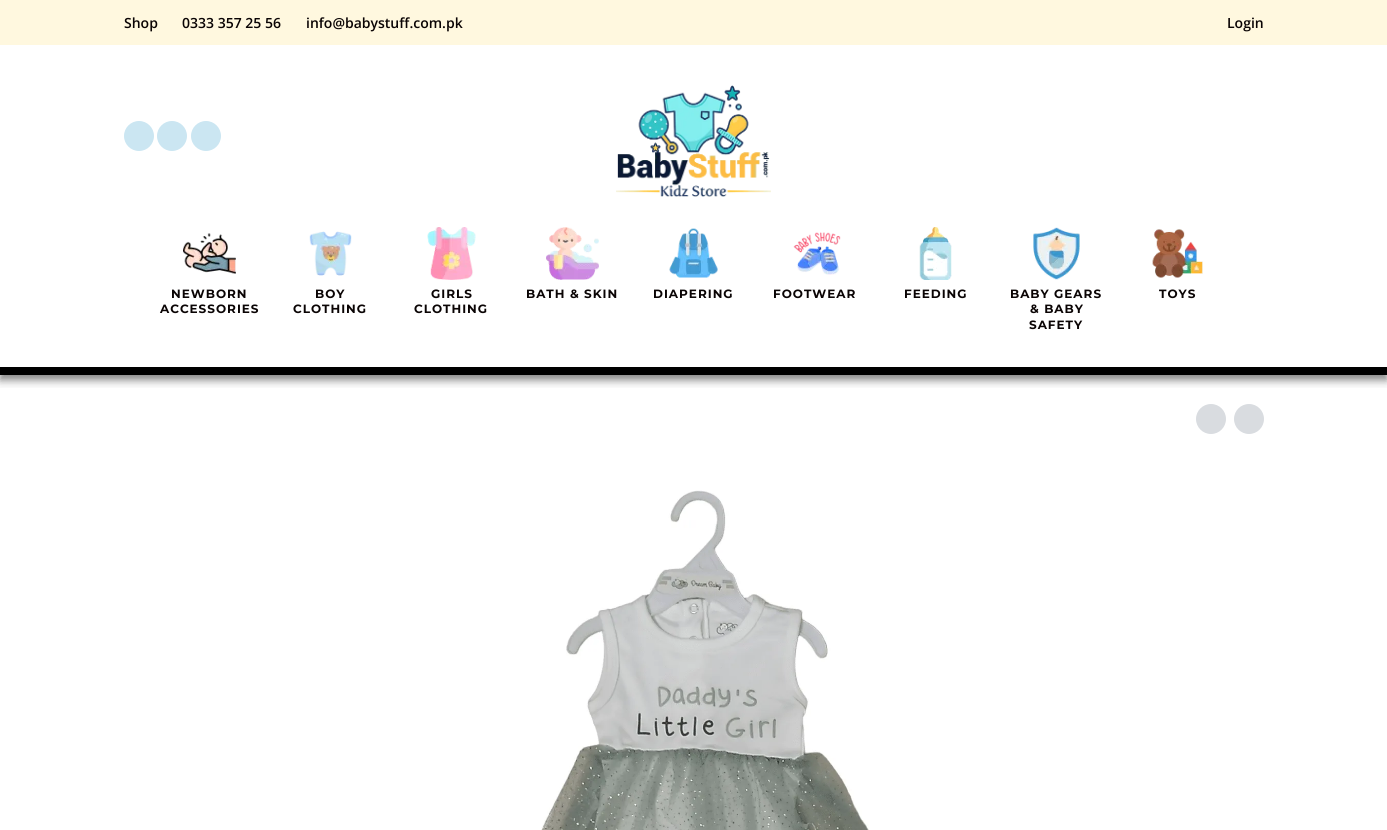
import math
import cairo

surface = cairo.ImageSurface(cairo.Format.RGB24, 1387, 830)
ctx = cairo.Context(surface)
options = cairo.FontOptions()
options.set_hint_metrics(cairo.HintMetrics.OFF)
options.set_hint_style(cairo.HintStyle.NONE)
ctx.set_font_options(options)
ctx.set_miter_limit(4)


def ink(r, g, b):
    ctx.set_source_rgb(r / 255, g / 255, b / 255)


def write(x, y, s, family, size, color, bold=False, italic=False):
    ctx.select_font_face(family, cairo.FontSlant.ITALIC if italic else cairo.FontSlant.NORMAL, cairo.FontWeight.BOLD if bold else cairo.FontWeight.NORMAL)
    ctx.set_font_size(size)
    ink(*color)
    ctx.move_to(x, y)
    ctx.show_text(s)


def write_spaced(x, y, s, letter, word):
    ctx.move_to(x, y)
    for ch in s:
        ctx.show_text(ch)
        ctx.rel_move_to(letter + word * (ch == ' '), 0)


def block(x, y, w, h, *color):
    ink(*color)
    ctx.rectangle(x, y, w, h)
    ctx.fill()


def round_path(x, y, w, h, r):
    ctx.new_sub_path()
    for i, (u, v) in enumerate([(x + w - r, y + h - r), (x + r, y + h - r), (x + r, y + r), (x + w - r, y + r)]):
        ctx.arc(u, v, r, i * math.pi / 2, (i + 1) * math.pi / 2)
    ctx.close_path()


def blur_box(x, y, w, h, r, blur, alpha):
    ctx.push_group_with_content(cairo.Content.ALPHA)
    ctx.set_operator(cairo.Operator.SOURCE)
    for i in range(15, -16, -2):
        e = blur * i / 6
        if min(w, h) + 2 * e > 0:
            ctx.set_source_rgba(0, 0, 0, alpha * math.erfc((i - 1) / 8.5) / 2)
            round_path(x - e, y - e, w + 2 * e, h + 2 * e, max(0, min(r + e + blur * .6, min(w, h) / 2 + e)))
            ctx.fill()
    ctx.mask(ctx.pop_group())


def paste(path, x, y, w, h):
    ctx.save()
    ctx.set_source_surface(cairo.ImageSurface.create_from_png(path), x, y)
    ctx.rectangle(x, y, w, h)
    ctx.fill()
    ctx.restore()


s1 = dict(family="Open Sans SemiBold", size=14, color=(10, 4, 4))

ink(255, 255, 255)
ctx.paint()
ctx.save()
ctx.rectangle(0, 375, 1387, 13)
ctx.clip()
ink(0, 0, 0)
blur_box(0, 5, 1387, 375, 0, 4.5, 0.49)
ctx.restore()
block(0, 367, 1387, 8, 0, 0, 0)
block(0, 0, 1387, 45, 255, 248, 223)
write(124, 28, "Shop", **s1)
write(182, 28, "0333 357 25 56", **s1)
write(306, 28, "info@babystuff.com.pk", **s1)
write(1227, 28, "Login", **s1)
ink(203, 230, 242)
ctx.new_path()
ctx.arc(139, 136, 15, 0, 2 * math.pi)
ctx.fill()
ctx.arc(172, 136, 15, 0, 2 * math.pi)
ctx.fill()
ctx.arc(206, 136, 15, 0, 2 * math.pi)
ctx.fill()
paste("pic1.png", 616, 85, 155, 112)
paste("pic2.png", 183, 233, 53, 41)
ctx.select_font_face("Montserrat", cairo.FontSlant.NORMAL, cairo.FontWeight.BOLD)
ctx.set_font_size(12)
ink(10, 4, 4)
write_spaced(171, 298, "NEWBORN", 1, 0)
write_spaced(160, 313, "ACCESSORIES", 1, 0)
paste("pic3.png", 309, 231, 43, 45)
write_spaced(315, 298, "BOY", 1, 0)
write_spaced(293, 313, "CLOTHING", 1, 0)
paste("pic4.png", 427, 227, 49, 53)
write_spaced(431, 298, "GIRLS", 1, 0)
write_spaced(414, 313, "CLOTHING", 1, 0)
paste("pic5.png", 546, 227, 53, 53)
write_spaced(526, 298, "BATH & SKIN", 1, 0)
paste("pic6.png", 669, 228, 49, 50)
write_spaced(653, 298, "DIAPERING", 1, 0)
paste("pic7.png", 793, 232, 48, 43)
write_spaced(773, 298, "FOOTWEAR", 1, 0)
paste("pic8.png", 919, 227, 33, 53)
write_spaced(904, 298, "FEEDING", 1, 0)
paste("pic9.png", 1033, 227, 47, 53)
write_spaced(1010, 298, "BABY GEARS", 1, 0)
write_spaced(1030, 313, "& BABY", 1, 0)
write_spaced(1029, 329, "SAFETY", 1, 0)
paste("pic10.png", 1152, 229, 51, 49)
write_spaced(1159, 298, "TOYS", 1, 0)
ink(217, 220, 224)
ctx.new_path()
ctx.arc(1211, 419, 15, 0, 2 * math.pi)
ctx.fill()
ctx.arc(1249, 419, 15, 0, 2 * math.pi)
ctx.fill()
paste("pic11.png", 541, 490, 328, 340)
surface.write_to_png("screenshot.png")
